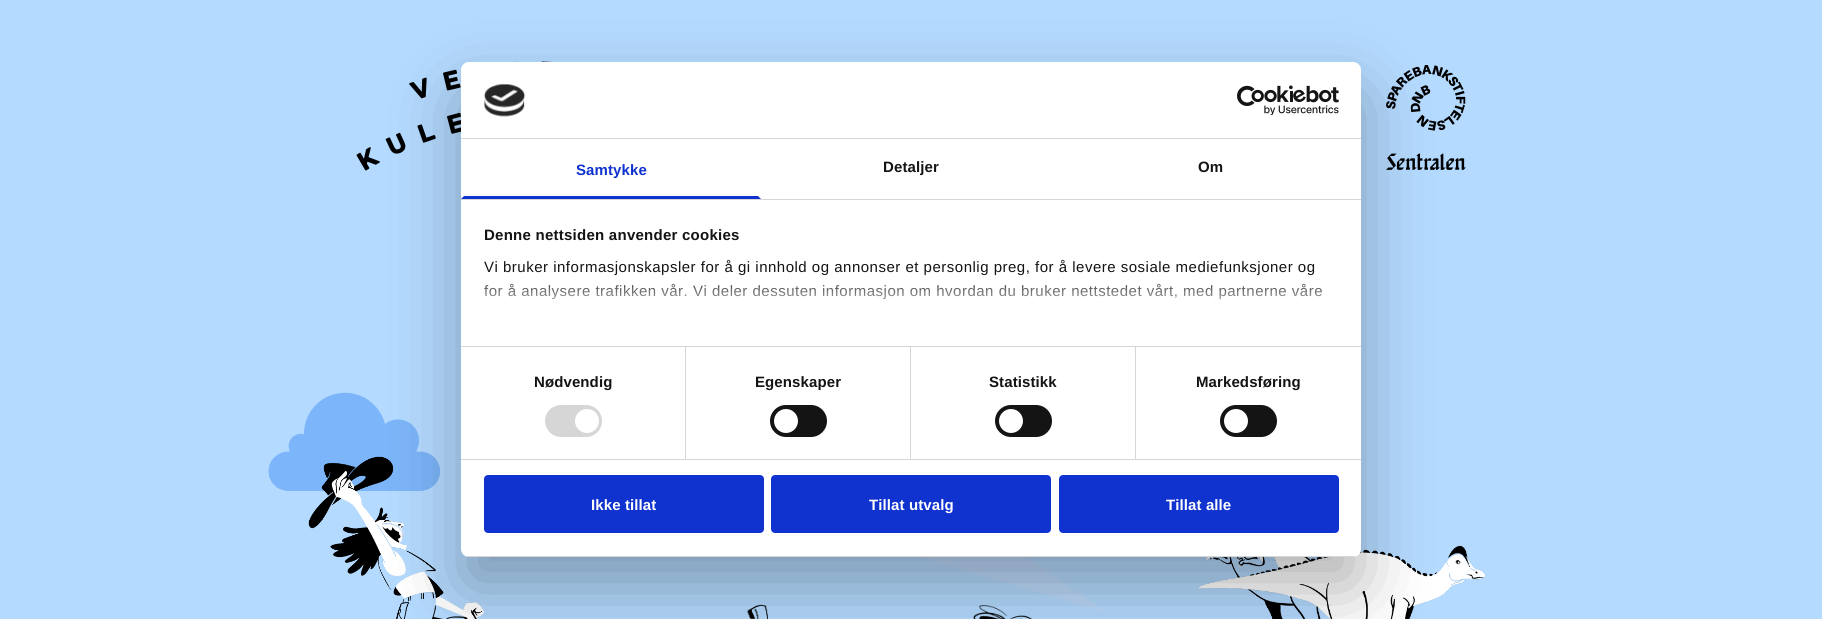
import math
import cairo

surface = cairo.ImageSurface(cairo.Format.RGB24, 1822, 619)
ctx = cairo.Context(surface)
options = cairo.FontOptions()
options.set_hint_metrics(cairo.HintMetrics.OFF)
options.set_hint_style(cairo.HintStyle.NONE)
ctx.set_font_options(options)
ctx.set_miter_limit(4)


def ink(r, g, b):
    ctx.set_source_rgb(r / 255, g / 255, b / 255)


def write_spaced(x, y, s, letter, word):
    ctx.move_to(x, y)
    for ch in s:
        ctx.show_text(ch)
        ctx.rel_move_to(letter + word * (ch == ' '), 0)


def block(x, y, w, h, *color):
    ink(*color)
    ctx.rectangle(x, y, w, h)
    ctx.fill()


def round_path(x, y, w, h, r):
    ctx.new_sub_path()
    for i, (u, v) in enumerate([(x + w - r, y + h - r), (x + r, y + h - r), (x + r, y + r), (x + w - r, y + r)]):
        ctx.arc(u, v, r, i * math.pi / 2, (i + 1) * math.pi / 2)
    ctx.close_path()


def blur_box(x, y, w, h, r, blur, alpha):
    ctx.push_group_with_content(cairo.Content.ALPHA)
    ctx.set_operator(cairo.Operator.SOURCE)
    for i in range(15, -16, -2):
        e = blur * i / 6
        if min(w, h) + 2 * e > 0:
            ctx.set_source_rgba(0, 0, 0, alpha * math.erfc((i - 1) / 8.5) / 2)
            round_path(x - e, y - e, w + 2 * e, h + 2 * e, max(0, min(r + e + blur * .6, min(w, h) / 2 + e)))
            ctx.fill()
    ctx.mask(ctx.pop_group())


def paste(path, x, y, w, h):
    ctx.save()
    ctx.set_source_surface(cairo.ImageSurface.create_from_png(path), x, y)
    ctx.rectangle(x, y, w, h)
    ctx.fill()
    ctx.restore()


ink(180, 218, 255)
ctx.paint()
paste("pic1.png", 356, 61, 196, 110)
paste("pic2.png", 1386, 65, 80, 66)
paste("pic3.png", 1386, 153, 80, 17)
paste("pic4.png", 268, 392, 216, 227)
paste("pic5.png", 743, 604, 85, 15)
paste("pic8.png", 973, 605, 60, 14)
paste("pic6.png", 920, 557, 184, 54)
paste("pic7.png", 1198, 545, 288, 74)
ink(0, 0, 0)
blur_box(461, 94, 900, 495, 8, 34, 0.3)
ink(255, 255, 255)
round_path(461, 62, 900, 495, 8)
ctx.fill()
block(461, 138, 900, 1, 214, 214, 214)
paste("pic9.png", 484, 84, 42, 33)
paste("pic10.png", 1237, 85, 102, 30)
block(461, 199, 900, 1, 214, 214, 214)
ink(16, 50, 207)
ctx.new_path()
ctx.move_to(761, 199)
ctx.line_to(461, 199)
ctx.line_to(464, 196)
ctx.line_to(758, 196)
ctx.close_path()
ctx.fill()
ctx.select_font_face("Liberation Sans", cairo.FontSlant.NORMAL, cairo.FontWeight.BOLD)
ctx.set_font_size(15)
write_spaced(576, 175, "Samtykke", 0.1, 0)
ink(20, 20, 20)
write_spaced(883, 172, "Detaljer", 0.1, 0)
write_spaced(1198, 172, "Om", 0.1, 0)
block(461, 346, 900, 1, 214, 214, 214)
ink(20, 20, 20)
write_spaced(484, 240, "Denne nettsiden anvender cookies", 0.25, 0)
ctx.select_font_face("Liberation Sans")
write_spaced(484, 272, "Vi bruker informasjonskapsler for å gi innhold og annonser et personlig preg, for å levere sosiale mediefunksjoner og", 0.5, 0)
write_spaced(484, 296, "for å analysere trafikken vår. Vi deler dessuten informasjon om hvordan du bruker nettstedet vårt, med partnerne våre", 0.5, 0)
gradient = cairo.LinearGradient(901, 346, 901, 273)
gradient.add_color_stop_rgba(0, 1, 1, 1, 1)
gradient.add_color_stop_rgba(0.5, 1, 1, 1, 0.8)
gradient.add_color_stop_rgba(1, 1, 1, 1, 0)
ctx.set_source(gradient)
ctx.rectangle(483, 274, 839, 26)
ctx.fill()
block(461, 459, 900, 1, 214, 214, 214)
block(685, 347, 1, 112, 214, 214, 214)
ctx.select_font_face("Liberation Sans", cairo.FontSlant.NORMAL, cairo.FontWeight.BOLD)
ink(20, 20, 20)
write_spaced(534, 387, "Nødvendig", 0.1, 0)
ink(214, 214, 214)
round_path(545, 405, 57, 32, 16)
ctx.fill()
ink(255, 255, 255)
ctx.arc(587, 421, 12, 0, 2 * math.pi)
ctx.fill()
block(910, 347, 1, 112, 214, 214, 214)
ink(20, 20, 20)
write_spaced(755, 387, "Egenskaper", 0.1, 0)
round_path(770, 405, 57, 32, 16)
ctx.fill()
ink(255, 255, 255)
ctx.arc(786, 421, 12, 0, 2 * math.pi)
ctx.fill()
block(1135, 347, 1, 112, 214, 214, 214)
ink(20, 20, 20)
write_spaced(989, 387, "Statistikk", 0.1, 0)
round_path(995, 405, 57, 32, 16)
ctx.fill()
ink(255, 255, 255)
ctx.arc(1011, 421, 12, 0, 2 * math.pi)
ctx.fill()
ink(20, 20, 20)
write_spaced(1196, 387, "Markedsføring", 0.1, 0)
round_path(1220, 405, 57, 32, 16)
ctx.fill()
ink(255, 255, 255)
ctx.arc(1236, 421, 12, 0, 2 * math.pi)
ctx.fill()
ctx.save()
round_path(461, 62, 900, 495, 8)
ctx.clip()
block(461, 556, 900, 1, 214, 214, 214)
ctx.restore()
ink(16, 50, 207)
round_path(485, 476, 278, 56, 3)
ctx.fill_preserve()
ctx.stroke()
ink(255, 255, 255)
write_spaced(591, 510, "Ikke tillat", 0.1, 0)
ink(16, 50, 207)
round_path(772, 476, 278, 56, 3)
ctx.fill_preserve()
ctx.stroke()
ink(255, 255, 255)
write_spaced(869, 510, "Tillat utvalg", 0.1, 0)
ink(16, 50, 207)
round_path(1060, 476, 278, 56, 3)
ctx.fill_preserve()
ctx.stroke()
ink(255, 255, 255)
write_spaced(1166, 510, "Tillat alle", 0.1, 0)
surface.write_to_png("screenshot.png")
